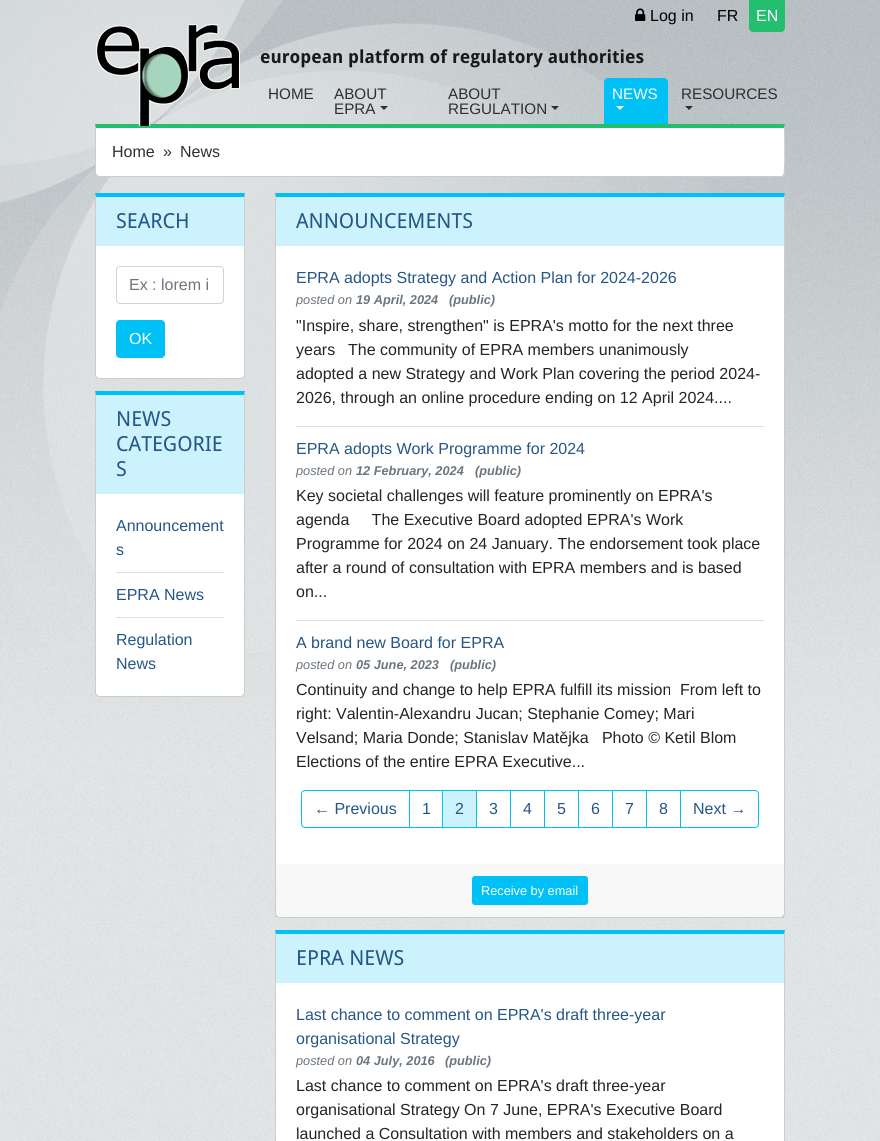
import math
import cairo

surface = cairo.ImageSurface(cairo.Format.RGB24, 880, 1141)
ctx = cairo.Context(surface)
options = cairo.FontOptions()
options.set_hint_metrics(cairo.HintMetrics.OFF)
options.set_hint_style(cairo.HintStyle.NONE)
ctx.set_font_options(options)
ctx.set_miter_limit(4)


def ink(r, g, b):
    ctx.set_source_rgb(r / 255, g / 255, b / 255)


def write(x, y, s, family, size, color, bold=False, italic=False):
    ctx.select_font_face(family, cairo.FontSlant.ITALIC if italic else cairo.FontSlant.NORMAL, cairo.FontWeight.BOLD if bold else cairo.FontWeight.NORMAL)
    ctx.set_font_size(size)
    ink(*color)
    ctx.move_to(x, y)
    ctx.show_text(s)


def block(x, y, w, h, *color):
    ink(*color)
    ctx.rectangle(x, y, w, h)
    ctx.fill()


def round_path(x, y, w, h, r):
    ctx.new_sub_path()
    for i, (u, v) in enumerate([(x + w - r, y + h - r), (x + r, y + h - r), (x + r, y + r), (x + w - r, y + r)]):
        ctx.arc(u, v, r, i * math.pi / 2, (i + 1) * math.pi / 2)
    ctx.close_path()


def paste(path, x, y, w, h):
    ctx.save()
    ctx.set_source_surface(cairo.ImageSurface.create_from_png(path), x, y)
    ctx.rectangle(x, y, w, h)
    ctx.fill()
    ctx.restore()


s1 = dict(family="Liberation Sans", size=16, color=(0, 0, 0))
s2 = dict(family="Liberation Sans", size=16, color=(255, 255, 255))
s3 = dict(family="Droid Sans", size=18, color=(27, 24, 24), bold=True)
s4 = dict(family="Liberation Sans", size=15.25, color=(47, 47, 47))
s5 = dict(family="Liberation Sans", size=15.25, color=(255, 255, 255))
s6 = dict(family="Liberation Sans", size=16, color=(47, 47, 47))
s7 = dict(family="Droid Sans", size=20.75, color=(37, 86, 133))
s8 = dict(family="Liberation Sans", size=16, color=(108, 117, 125))
s9 = dict(family="Liberation Sans", size=16, color=(37, 86, 133))
s10 = dict(family="Liberation Sans", size=12.75, color=(108, 117, 125), italic=True)
s11 = dict(family="Liberation Sans", size=12.75, color=(108, 117, 125), bold=True, italic=True)
s12 = dict(family="Liberation Sans", size=16, color=(33, 37, 41))
s13 = dict(family="Liberation Sans", size=12.75, color=(255, 255, 255))

ink(255, 255, 255)
ctx.paint()
paste("pic1.png", 0, 0, 880, 1141)
paste("pic3.png", 0, 0, 709, 653)
paste("pic2.png", 635, 8, 11, 13)
write(650, 21, "Log in", **s1)
write(717, 21, "FR", **s1)
ink(35, 190, 110)
ctx.new_path()
ctx.move_to(749, 0)
ctx.line_to(785, 0)
ctx.line_to(785, 28)
ctx.curve_to(785, 30, 783, 32, 781, 32)
ctx.line_to(753, 32)
ctx.curve_to(751, 32, 749, 30, 749, 28)
ctx.close_path()
ctx.fill()
write(756, 21, "EN", **s2)
ctx.new_path()
ctx.move_to(95, 124)
ctx.line_to(785, 124)
ctx.line_to(785, 173)
ctx.curve_to(785, 175, 783, 177, 781, 177)
ctx.line_to(99, 177)
ctx.curve_to(97, 177, 95, 175, 95, 173)
ctx.close_path()
ctx.fill()
ink(35, 190, 110)
ctx.new_path()
ctx.move_to(95, 124)
ctx.line_to(96, 128)
ctx.line_to(784, 128)
ctx.line_to(785, 124)
ctx.close_path()
ctx.fill()
ctx.set_source_rgba(0, 0, 0, 0.2)
ctx.new_path()
ctx.move_to(785, 124)
ctx.line_to(784, 128)
ctx.curve_to(784, 134, 785, 173, 783, 175)
ctx.line_to(784, 176)
ctx.line_to(785, 173)
ctx.close_path()
ctx.fill()
ctx.new_path()
ctx.move_to(99, 177)
ctx.line_to(781, 177)
ctx.line_to(784, 176)
ctx.line_to(783, 175)
ctx.line_to(781, 176)
ctx.line_to(99, 176)
ctx.line_to(97, 175)
ctx.line_to(96, 176)
ctx.close_path()
ctx.fill()
ctx.new_path()
ctx.move_to(96, 128)
ctx.line_to(95, 124)
ctx.line_to(95, 174)
ctx.line_to(96, 176)
ctx.line_to(97, 175)
ctx.line_to(96, 173)
ctx.close_path()
ctx.fill()
paste("pic4.png", 96, 24, 144, 102)
write(260, 63, "european platform of regulatory authorities", **s3)
write(268, 99, "HOME", **s4)
write(334, 99, "ABOUT", **s4)
write(334, 114, "EPRA", **s4)
ctx.new_path()
ctx.move_to(380, 106)
ctx.line_to(388, 106)
ctx.line_to(384, 110)
ctx.close_path()
ctx.fill()
write(448, 99, "ABOUT", **s4)
write(448, 114, "REGULATION", **s4)
ctx.new_path()
ctx.move_to(551, 106)
ctx.line_to(559, 106)
ctx.line_to(555, 110)
ctx.close_path()
ctx.fill()
ink(0, 193, 246)
ctx.new_path()
ctx.move_to(608, 78)
ctx.line_to(664, 78)
ctx.curve_to(666, 78, 668, 80, 668, 82)
ctx.line_to(668, 124)
ctx.line_to(604, 124)
ctx.line_to(604, 82)
ctx.curve_to(604, 80, 606, 78, 608, 78)
ctx.close_path()
ctx.fill()
write(612, 99, "NEWS", **s5)
ctx.new_path()
ctx.move_to(616, 106)
ctx.line_to(624, 106)
ctx.line_to(620, 110)
ctx.close_path()
ctx.fill()
write(681, 99, "RESOURCES", **s4)
ctx.new_path()
ctx.move_to(685, 106)
ctx.line_to(693, 106)
ctx.line_to(689, 110)
ctx.close_path()
ctx.fill()
write(112, 157, "Home", **s6)
write(163, 157, "»", **s6)
write(180, 157, "News", **s6)
ink(255, 255, 255)
ctx.new_path()
ctx.move_to(95, 193)
ctx.line_to(245, 193)
ctx.line_to(245, 375)
ctx.curve_to(245, 377, 243, 379, 241, 379)
ctx.line_to(99, 379)
ctx.curve_to(97, 379, 95, 377, 95, 375)
ctx.close_path()
ctx.fill()
ink(0, 193, 246)
ctx.new_path()
ctx.move_to(95, 193)
ctx.line_to(96, 197)
ctx.line_to(244, 197)
ctx.line_to(245, 193)
ctx.close_path()
ctx.fill()
ctx.set_source_rgba(0, 0, 0, 0.2)
ctx.new_path()
ctx.move_to(245, 193)
ctx.line_to(244, 197)
ctx.line_to(244, 375)
ctx.line_to(243, 377)
ctx.line_to(244, 378)
ctx.line_to(245, 375)
ctx.close_path()
ctx.fill()
ctx.new_path()
ctx.move_to(99, 379)
ctx.line_to(241, 379)
ctx.line_to(244, 378)
ctx.line_to(243, 377)
ctx.line_to(241, 378)
ctx.line_to(99, 378)
ctx.line_to(97, 377)
ctx.line_to(96, 378)
ctx.close_path()
ctx.fill()
ctx.new_path()
ctx.move_to(96, 197)
ctx.line_to(95, 193)
ctx.line_to(95, 375)
ctx.curve_to(95, 376, 96, 377, 96, 378)
ctx.line_to(97, 377)
ctx.line_to(96, 375)
ctx.close_path()
ctx.fill()
block(96, 197, 148, 49, 204, 243, 253)
write(116, 228, "SEARCH", **s7)
round_path(116.5, 266.5, 107, 37, 3.5)
ink(206, 212, 218)
ctx.set_line_width(1)
ctx.stroke()
write(129, 290, "Ex : lorem i", **s8)
ink(0, 193, 246)
round_path(116.5, 320.5, 48, 37, 3.5)
ctx.fill_preserve()
ctx.stroke()
write(129, 344, "OK", **s2)
ctx.new_path()
ctx.move_to(95, 391)
ctx.line_to(245, 391)
ctx.line_to(245, 693)
ctx.curve_to(245, 695, 243, 697, 241, 697)
ctx.line_to(99, 697)
ctx.curve_to(97, 697, 95, 695, 95, 693)
ctx.close_path()
ctx.fill()
ink(0, 193, 246)
ctx.new_path()
ctx.move_to(95, 391)
ctx.line_to(96, 395)
ctx.line_to(244, 395)
ctx.line_to(245, 391)
ctx.close_path()
ctx.fill()
ctx.set_source_rgba(0, 0, 0, 0.2)
ctx.new_path()
ctx.move_to(245, 391)
ctx.line_to(244, 395)
ctx.line_to(244, 693)
ctx.line_to(243, 695)
ctx.line_to(244, 696)
ctx.line_to(245, 693)
ctx.close_path()
ctx.fill()
ctx.new_path()
ctx.move_to(99, 697)
ctx.line_to(241, 697)
ctx.line_to(244, 696)
ctx.line_to(243, 695)
ctx.line_to(241, 696)
ctx.line_to(99, 696)
ctx.line_to(97, 695)
ctx.line_to(96, 696)
ctx.close_path()
ctx.fill()
ctx.new_path()
ctx.move_to(96, 395)
ctx.line_to(95, 391)
ctx.line_to(95, 693)
ctx.line_to(96, 696)
ctx.line_to(97, 695)
ctx.line_to(96, 693)
ctx.close_path()
ctx.fill()
block(96, 395, 148, 99, 204, 243, 253)
write(116, 426, "NEWS", **s7)
write(116, 451, "CATEGORIE", **s7)
write(116, 476, "S", **s7)
write(116, 531, "Announcement", **s9)
write(116, 555, "s", **s9)
block(116, 572, 108, 1, 222, 222, 222)
write(116, 600, "EPRA News", **s9)
block(116, 617, 108, 1, 222, 222, 222)
write(116, 645, "Regulation", **s9)
write(116, 669, "News", **s9)
ink(255, 255, 255)
ctx.new_path()
ctx.move_to(275, 193)
ctx.line_to(785, 193)
ctx.line_to(785, 914)
ctx.curve_to(785, 916, 783, 918, 781, 918)
ctx.line_to(279, 918)
ctx.curve_to(277, 918, 275, 916, 275, 914)
ctx.close_path()
ctx.fill()
ink(0, 193, 246)
ctx.new_path()
ctx.move_to(275, 193)
ctx.line_to(276, 197)
ctx.line_to(784, 197)
ctx.line_to(785, 193)
ctx.close_path()
ctx.fill()
ctx.set_source_rgba(0, 0, 0, 0.2)
ctx.new_path()
ctx.move_to(785, 193)
ctx.line_to(784, 197)
ctx.line_to(784, 914)
ctx.line_to(783, 916)
ctx.line_to(784, 917)
ctx.line_to(785, 914)
ctx.close_path()
ctx.fill()
ctx.new_path()
ctx.move_to(279, 918)
ctx.line_to(781, 918)
ctx.curve_to(782, 918, 783, 918, 784, 917)
ctx.line_to(783, 916)
ctx.line_to(781, 917)
ctx.line_to(279, 917)
ctx.line_to(277, 916)
ctx.line_to(276, 917)
ctx.close_path()
ctx.fill()
ctx.new_path()
ctx.move_to(276, 197)
ctx.line_to(275, 193)
ctx.line_to(275, 914)
ctx.line_to(276, 917)
ctx.line_to(277, 916)
ctx.line_to(276, 914)
ctx.close_path()
ctx.fill()
block(276, 197, 508, 49, 204, 243, 253)
write(296, 228, "ANNOUNCEMENTS", **s7)
write(296, 283, "EPRA adopts Strategy and Action Plan for 2024-2026", **s9)
write(296, 304, "posted on", **s10)
write(356, 304, "19 April, 2024", **s11)
write(449, 304, "(public)", **s11)
write(296, 331, "\"Inspire, share, strengthen\" is EPRA's motto for the next three", **s12)
write(296, 355, "years", **s12)
write(348, 355, "The community of EPRA members unanimously", **s12)
write(296, 379, "adopted a new Strategy and Work Plan covering the period 2024-", **s12)
write(296, 403, "2026, through an online procedure ending on 12 April 2024....", **s12)
block(296, 426, 468, 1, 222, 222, 222)
write(296, 454, "EPRA adopts Work Programme for 2024", **s9)
write(296, 475, "posted on", **s10)
write(356, 475, "12 February, 2024", **s11)
write(475, 475, "(public)", **s11)
write(296, 501, "Key societal challenges will feature prominently on EPRA's", **s12)
write(296, 525, "agenda     The Executive Board adopted EPRA's Work", **s12)
write(296, 549, "Programme for 2024 on 24 January. The endorsement took place", **s12)
write(296, 573, "after a round of consultation with EPRA members and is based", **s12)
write(296, 597, "on...", **s12)
block(296, 620, 468, 1, 222, 222, 222)
write(296, 648, "A brand new Board for EPRA", **s9)
write(296, 669, "posted on", **s10)
write(356, 669, "05 June, 2023", **s11)
write(450, 669, "(public)", **s11)
write(296, 695, "Continuity and change to help EPRA fulfill its mission", **s12)
write(680, 695, "From left to", **s12)
write(296, 719, "right: Valentin-Alexandru Jucan; Stephanie Comey; Mari", **s12)
write(296, 743, "Velsand; Maria Donde; Stanislav Matějka   Photo © Ketil Blom", **s12)
write(296, 767, "Elections of the entire EPRA Executive...", **s12)
ctx.new_path()
ctx.move_to(305, 790.5)
ctx.line_to(409.5, 790.5)
ctx.line_to(409.5, 827.5)
ctx.line_to(305, 827.5)
ctx.curve_to(303, 827.5, 301.5, 826, 301.5, 824)
ctx.line_to(301.5, 794)
ctx.curve_to(301.5, 792, 303, 790.5, 305, 790.5)
ctx.close_path()
ink(0, 193, 246)
ctx.stroke()
write(314, 814, "← Previous", **s9)
ctx.rectangle(409.5, 790.5, 33, 37)
ink(0, 193, 246)
ctx.stroke()
write(422, 814, "1", **s9)
ctx.rectangle(476.5, 790.5, 34, 37)
ink(0, 193, 246)
ctx.stroke()
ink(204, 243, 253)
ctx.rectangle(442.5, 790.5, 34, 37)
ctx.fill_preserve()
ink(0, 193, 246)
ctx.stroke()
write(455, 814, "2", **s9)
write(489, 814, "3", **s9)
ctx.rectangle(510.5, 790.5, 34, 37)
ink(0, 193, 246)
ctx.stroke()
write(523, 814, "4", **s9)
ctx.rectangle(544.5, 790.5, 34, 37)
ink(0, 193, 246)
ctx.stroke()
write(557, 814, "5", **s9)
ctx.rectangle(578.5, 790.5, 34, 37)
ink(0, 193, 246)
ctx.stroke()
write(591, 814, "6", **s9)
ctx.rectangle(612.5, 790.5, 34, 37)
ink(0, 193, 246)
ctx.stroke()
write(625, 814, "7", **s9)
ctx.rectangle(646.5, 790.5, 34, 37)
ink(0, 193, 246)
ctx.stroke()
write(659, 814, "8", **s9)
ink(255, 255, 255)
ctx.new_path()
ctx.move_to(680.5, 790.5)
ctx.line_to(755, 790.5)
ctx.curve_to(757, 790.5, 758.5, 792, 758.5, 794)
ctx.line_to(758.5, 824)
ctx.curve_to(758.5, 826, 757, 827.5, 755, 827.5)
ctx.line_to(680.5, 827.5)
ctx.close_path()
ctx.fill_preserve()
ink(0, 193, 246)
ctx.stroke()
write(693, 814, "Next →", **s9)
ctx.set_source_rgba(0, 0, 0, 0.03)
ctx.rectangle(276, 864, 508, 53)
ctx.fill()
ink(0, 193, 246)
round_path(472.5, 876.5, 115, 28, 2.5)
ctx.fill_preserve()
ctx.stroke()
write(481, 895, "Receive by email", **s13)
block(275, 930, 510, 211, 255, 255, 255)
ink(0, 193, 246)
ctx.new_path()
ctx.move_to(275, 930)
ctx.line_to(276, 934)
ctx.line_to(784, 934)
ctx.line_to(785, 930)
ctx.close_path()
ctx.fill()
ctx.set_source_rgba(0, 0, 0, 0.2)
ctx.new_path()
ctx.move_to(785, 930)
ctx.line_to(784, 934)
ctx.line_to(784, 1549)
ctx.line_to(783, 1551)
ctx.line_to(784, 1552)
ctx.line_to(785, 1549)
ctx.close_path()
ctx.fill()
ctx.new_path()
ctx.move_to(276, 934)
ctx.line_to(275, 930)
ctx.line_to(275, 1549)
ctx.line_to(276, 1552)
ctx.line_to(277, 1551)
ctx.line_to(276, 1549)
ctx.close_path()
ctx.fill()
block(276, 934, 508, 49, 204, 243, 253)
write(296, 965, "EPRA NEWS", **s7)
write(296, 1020, "Last chance to comment on EPRA's draft three-year", **s9)
write(296, 1044, "organisational Strategy", **s9)
write(296, 1065, "posted on", **s10)
write(356, 1065, "04 July, 2016", **s11)
write(445, 1065, "(public)", **s11)
write(296, 1091, "Last chance to comment on EPRA's draft three-year", **s12)
write(296, 1115, "organisational Strategy On 7 June, EPRA's Executive Board", **s12)
write(296, 1139, "launched a Consultation with members and stakeholders on a", **s12)
surface.write_to_png("screenshot.png")
